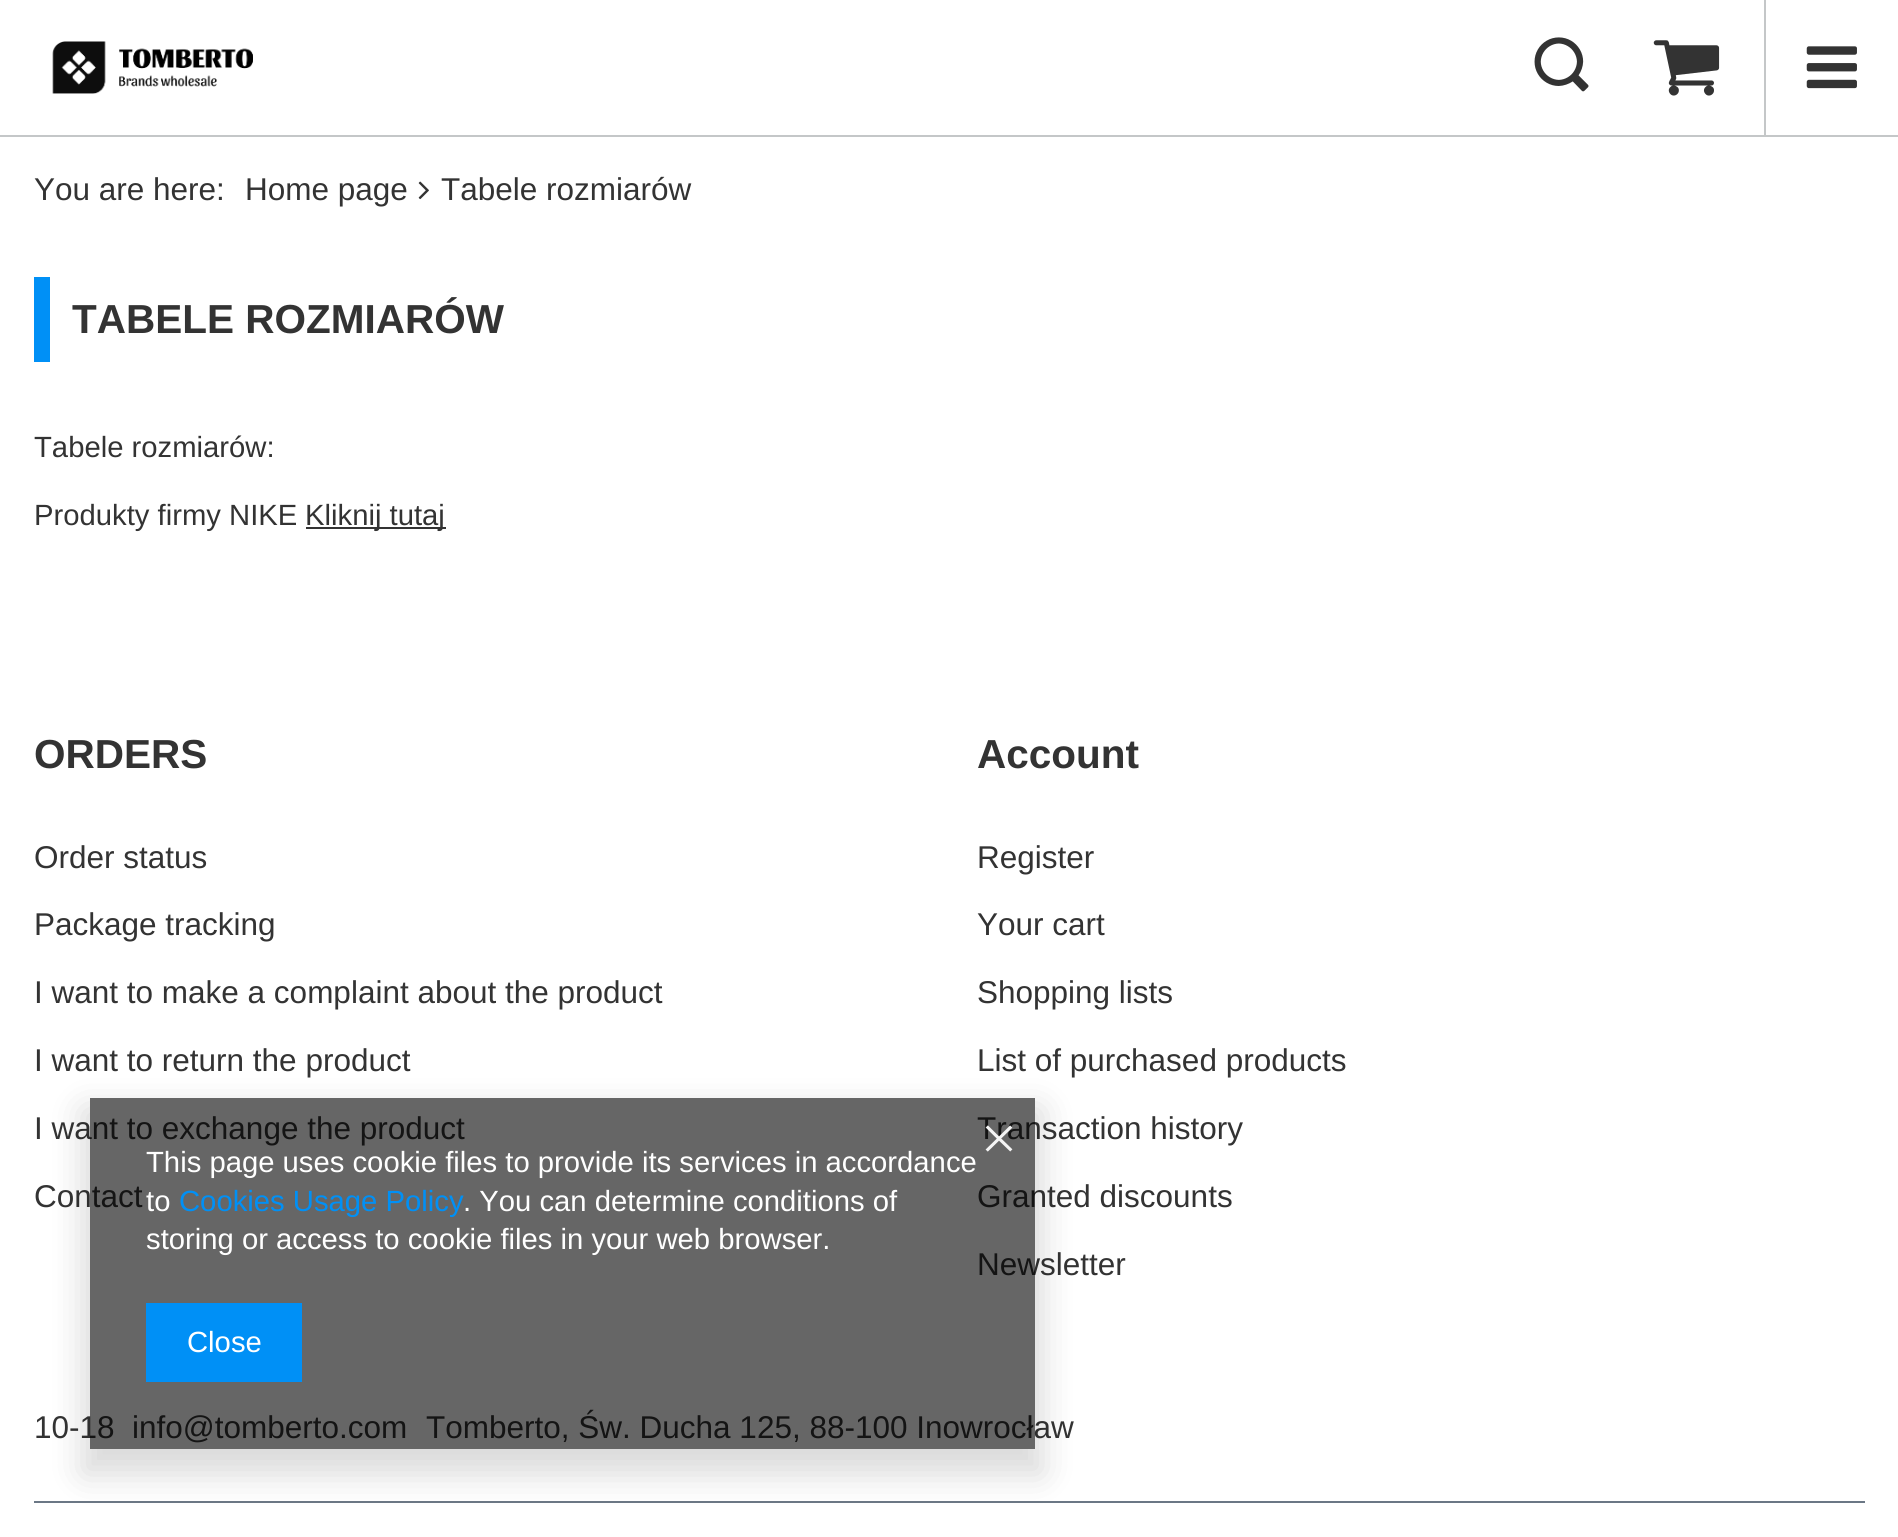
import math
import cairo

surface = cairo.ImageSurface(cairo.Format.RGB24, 1898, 1537)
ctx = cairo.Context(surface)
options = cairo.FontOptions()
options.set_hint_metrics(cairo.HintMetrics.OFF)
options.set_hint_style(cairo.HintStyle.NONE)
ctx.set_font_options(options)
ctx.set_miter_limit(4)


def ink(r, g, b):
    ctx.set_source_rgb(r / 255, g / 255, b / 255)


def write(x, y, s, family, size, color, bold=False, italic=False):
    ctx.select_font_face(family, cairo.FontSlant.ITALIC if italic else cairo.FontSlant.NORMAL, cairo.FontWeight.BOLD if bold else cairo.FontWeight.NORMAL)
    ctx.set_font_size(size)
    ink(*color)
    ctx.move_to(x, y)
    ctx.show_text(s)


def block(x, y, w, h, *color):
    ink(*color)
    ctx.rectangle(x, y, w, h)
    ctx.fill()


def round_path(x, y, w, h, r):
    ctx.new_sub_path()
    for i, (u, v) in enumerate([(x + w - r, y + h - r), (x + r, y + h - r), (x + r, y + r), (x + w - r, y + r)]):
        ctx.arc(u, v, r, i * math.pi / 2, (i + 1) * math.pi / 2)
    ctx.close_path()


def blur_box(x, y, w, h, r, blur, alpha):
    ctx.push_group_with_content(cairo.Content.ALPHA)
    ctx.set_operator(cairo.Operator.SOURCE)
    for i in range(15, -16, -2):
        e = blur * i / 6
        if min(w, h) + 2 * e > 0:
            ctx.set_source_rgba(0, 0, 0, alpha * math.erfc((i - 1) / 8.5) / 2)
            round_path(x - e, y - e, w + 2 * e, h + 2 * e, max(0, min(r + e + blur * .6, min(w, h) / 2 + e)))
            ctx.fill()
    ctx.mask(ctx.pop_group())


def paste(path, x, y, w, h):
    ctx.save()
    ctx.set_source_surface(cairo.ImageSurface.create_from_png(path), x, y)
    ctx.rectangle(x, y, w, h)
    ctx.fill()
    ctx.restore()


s1 = dict(family="Liberation Sans", size=31.5, color=(51, 51, 51))
s2 = dict(family="Liberation Sans", size=40.5, color=(51, 51, 51), bold=True)
s3 = dict(family="Liberation Sans", size=29.25, color=(51, 51, 51))
s4 = dict(family="Liberation Sans", size=29.25, color=(255, 255, 255))
s5 = dict(family="Liberation Sans", size=29.25, color=(0, 144, 246))

ink(255, 255, 255)
ctx.paint()
block(0, 135, 1898, 2, 196, 199, 200)
paste("pic1.png", 52, 41, 201, 53)
paste("pic2.png", 1534, 37, 55, 55)
paste("pic3.png", 1653, 40, 67, 56)
block(1764, 0, 2, 135, 196, 199, 200)
paste("pic4.png", 1806, 46, 51, 43)
write(34, 200, "You are here:", **s1)
write(245, 200, "Home page", **s1)
paste("pic5.png", 418, 181, 11, 19)
write(441, 200, "Tabele rozmiarów", **s1)
block(34, 277, 16, 85, 0, 144, 246)
write(72, 333, "TABELE ROZMIARÓW", **s2)
write(34, 457, "Tabele rozmiarów:", **s3)
write(34, 525, "Produkty firmy NIKE", **s3)
block(306, 527, 140, 2, 51, 51, 51)
write(305, 525, "Kliknij tutaj", **s3)
write(34, 768, "ORDERS", **s2)
write(34, 868, "Order status", **s1)
write(34, 935, "Package tracking", **s1)
write(34, 1003, "I want to make a complaint about the product", **s1)
write(34, 1071, "I want to return the product", **s1)
write(34, 1139, "I want to exchange the product", **s1)
write(34, 1207, "Contact", **s1)
write(977, 768, "Account", **s2)
write(977, 868, "Register", **s1)
write(977, 935, "Your cart", **s1)
write(977, 1003, "Shopping lists", **s1)
write(977, 1071, "List of purchased products", **s1)
write(977, 1139, "Transaction history", **s1)
write(977, 1207, "Granted discounts", **s1)
write(977, 1275, "Newsletter", **s1)
block(34, 1501, 1831, 2, 107, 119, 133)
write(34, 1438, "10-18", **s1)
write(132, 1438, "info@tomberto.com", **s1)
write(426, 1438, "Tomberto, Św. Ducha 125, 88-100 Inowrocław", **s1)
ctx.save()
ctx.set_fill_rule(cairo.FillRule.EVEN_ODD)
ctx.new_path()
ctx.move_to(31, 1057)
ctx.line_to(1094, 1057)
ctx.line_to(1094, 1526)
ctx.line_to(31, 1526)
ctx.close_path()
ctx.move_to(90, 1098)
ctx.line_to(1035, 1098)
ctx.line_to(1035, 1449)
ctx.line_to(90, 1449)
ctx.close_path()
ctx.clip()
ink(0, 0, 0)
blur_box(83, 1109, 959, 365, 0, 17, 0.15)
ctx.restore()
ctx.set_source_rgba(0, 0, 0, 0.6)
ctx.rectangle(90, 1098, 945, 351)
ctx.fill()
paste("pic6.png", 985, 1125, 28, 27)
write(146, 1172, "This page uses cookie files to provide its services in accordance", **s4)
write(146, 1211, "to", **s4)
write(179, 1211, "Cookies Usage Policy", **s5)
write(463, 1211, ". You can determine conditions of", **s4)
write(146, 1249, "storing or access to cookie files in your web browser.", **s4)
block(146, 1303, 156, 79, 0, 144, 246)
write(187, 1352, "Close", **s4)
surface.write_to_png("screenshot.png")
